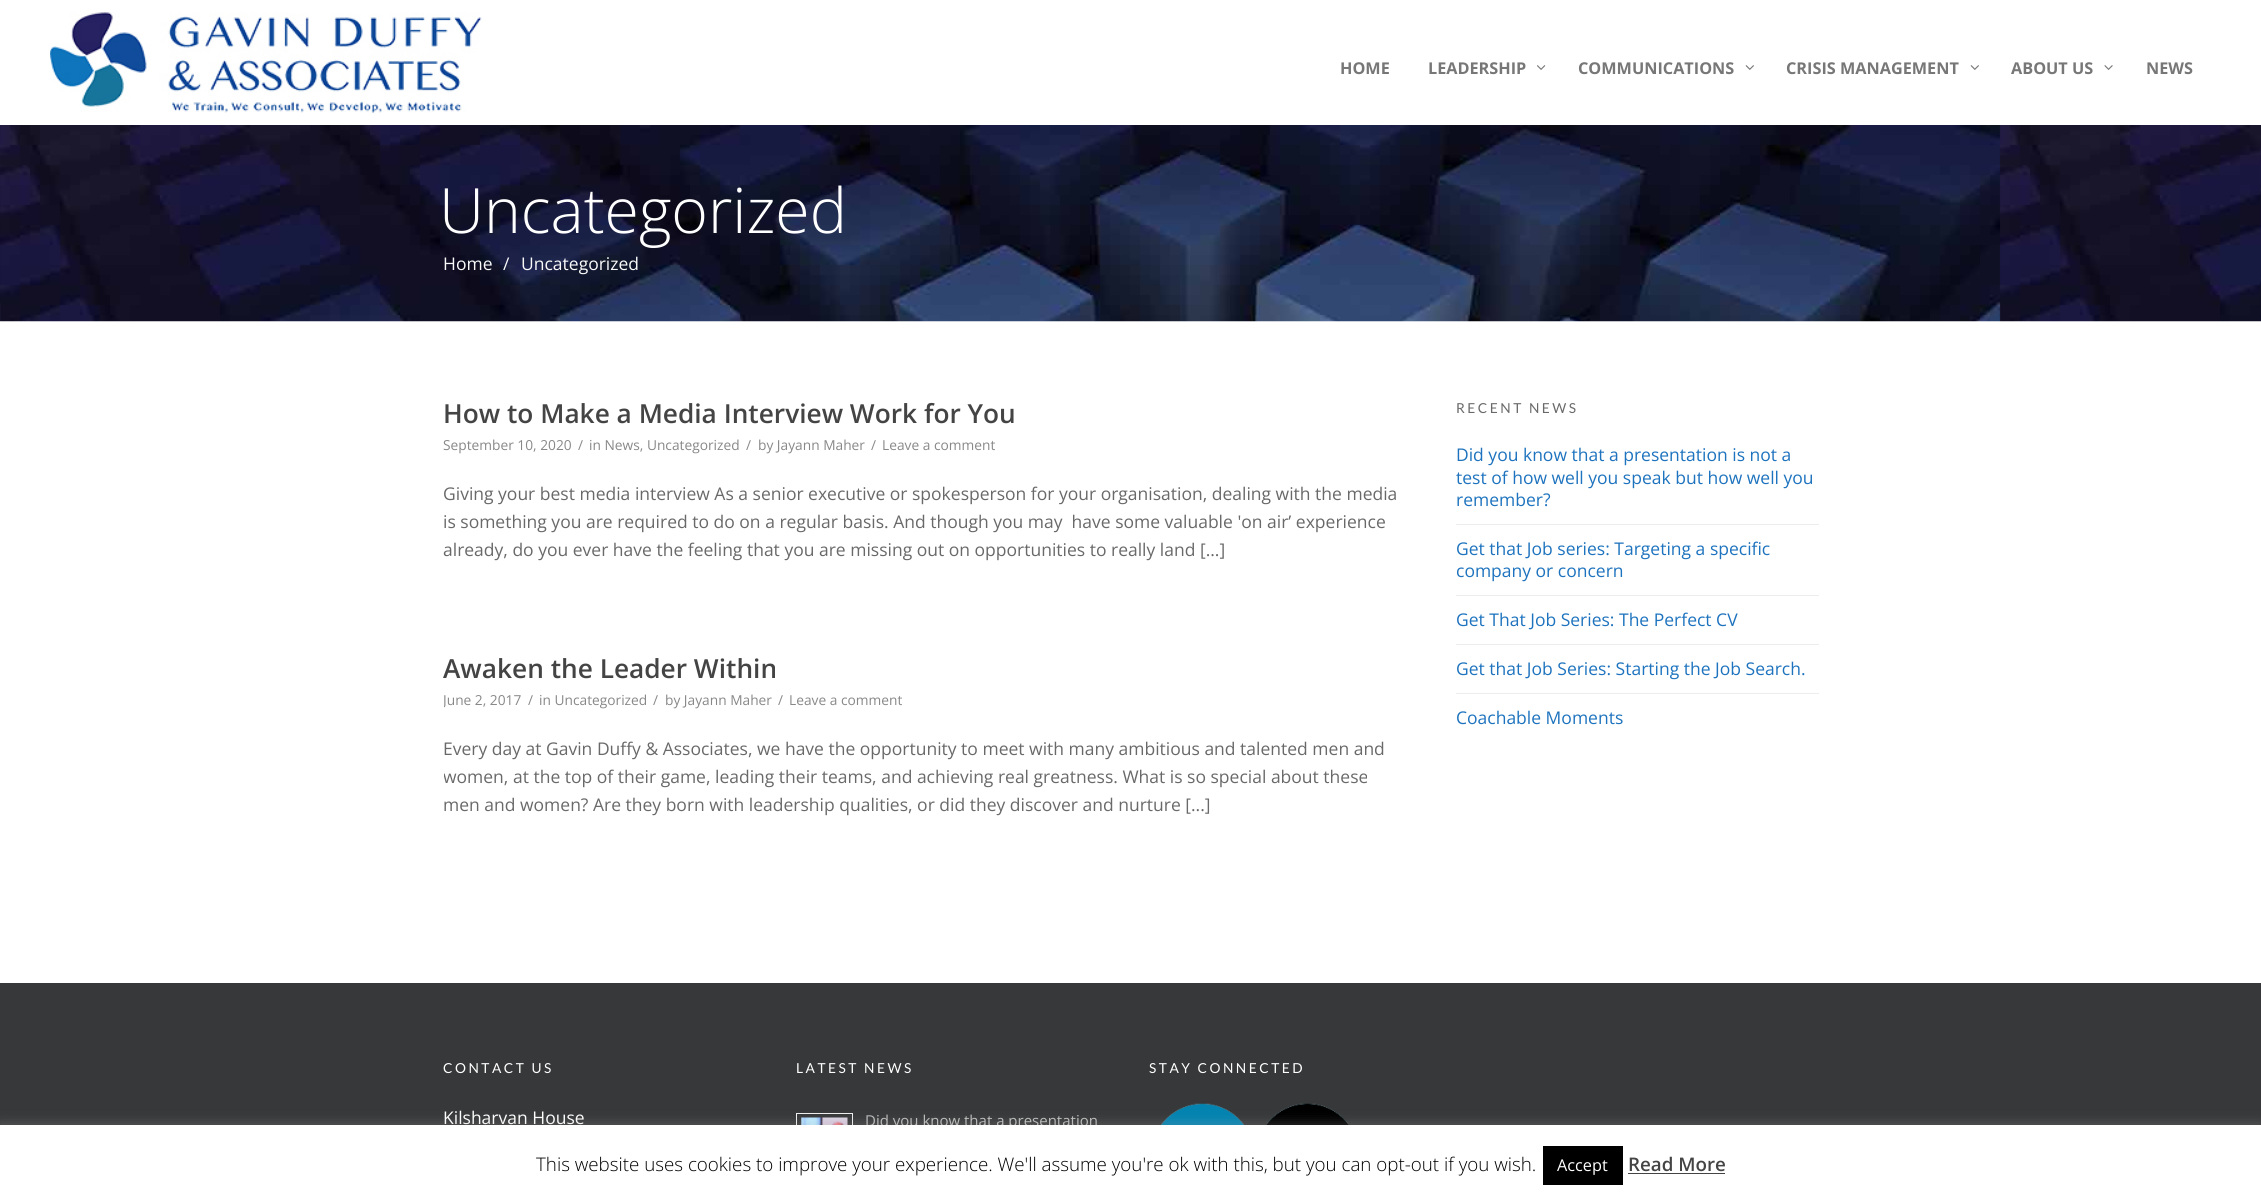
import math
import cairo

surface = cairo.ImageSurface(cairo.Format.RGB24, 2261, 1200)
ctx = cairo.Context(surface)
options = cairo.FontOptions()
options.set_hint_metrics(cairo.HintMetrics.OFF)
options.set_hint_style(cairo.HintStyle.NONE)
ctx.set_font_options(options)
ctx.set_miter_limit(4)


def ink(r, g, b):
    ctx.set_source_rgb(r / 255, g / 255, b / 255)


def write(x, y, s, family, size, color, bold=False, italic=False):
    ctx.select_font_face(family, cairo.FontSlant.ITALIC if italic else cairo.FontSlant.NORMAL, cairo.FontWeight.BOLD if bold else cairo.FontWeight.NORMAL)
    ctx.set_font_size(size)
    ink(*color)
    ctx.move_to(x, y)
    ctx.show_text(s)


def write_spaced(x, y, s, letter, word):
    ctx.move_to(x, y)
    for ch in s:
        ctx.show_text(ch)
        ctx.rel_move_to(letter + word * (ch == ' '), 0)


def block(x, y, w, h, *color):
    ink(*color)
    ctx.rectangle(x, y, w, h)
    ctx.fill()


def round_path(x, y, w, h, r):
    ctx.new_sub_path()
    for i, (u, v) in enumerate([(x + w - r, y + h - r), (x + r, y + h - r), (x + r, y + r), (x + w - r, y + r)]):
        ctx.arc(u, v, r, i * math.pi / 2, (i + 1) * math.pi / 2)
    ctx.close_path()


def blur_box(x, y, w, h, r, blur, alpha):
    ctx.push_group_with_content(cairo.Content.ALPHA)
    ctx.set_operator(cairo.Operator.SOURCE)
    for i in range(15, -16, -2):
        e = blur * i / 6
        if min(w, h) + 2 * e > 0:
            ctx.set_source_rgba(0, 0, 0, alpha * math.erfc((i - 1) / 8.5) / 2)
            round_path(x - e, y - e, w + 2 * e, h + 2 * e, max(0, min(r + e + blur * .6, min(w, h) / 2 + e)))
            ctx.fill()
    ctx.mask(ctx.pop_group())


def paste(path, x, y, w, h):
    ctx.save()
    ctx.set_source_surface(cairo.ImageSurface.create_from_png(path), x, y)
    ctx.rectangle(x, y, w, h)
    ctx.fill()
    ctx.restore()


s1 = dict(family="Open Sans", size=16.25, color=(119, 119, 119), bold=True)
s2 = dict(family="Open Sans Light", size=62.5, color=(255, 255, 255))
s3 = dict(family="Open Sans", size=17.5, color=(249, 249, 249))
s4 = dict(family="Open Sans SemiBold", size=26.25, color=(68, 68, 68))
s5 = dict(family="Open Sans", size=13.75, color=(136, 136, 136))
s6 = dict(family="Open Sans", size=17.5, color=(105, 105, 105))
s7 = dict(family="Open Sans", size=17.5, color=(30, 115, 190))
s8 = dict(family="Open Sans", size=17.5, color=(255, 255, 255))
s9 = dict(family="Open Sans", size=15, color=(188, 188, 188))
s10 = dict(family="Open Sans Light", size=18.75, color=(0, 0, 0))
s11 = dict(family="Open Sans", size=16.25, color=(255, 255, 255))
s12 = dict(family="Open Sans SemiBold", size=18.75, color=(68, 68, 68))

ink(255, 255, 255)
ctx.paint()
paste("pic1.png", 50, 12, 432, 101)
write(1340, 74, "HOME", **s1)
write(1428, 74, "LEADERSHIP", **s1)
paste("pic2.png", 1537, 65, 9, 5)
write(1578, 74, "COMMUNICATIONS", **s1)
paste("pic3.png", 1745, 65, 9, 5)
write(1786, 74, "CRISIS MANAGEMENT", **s1)
paste("pic3.png", 1970, 65, 9, 5)
write(2011, 74, "ABOUT US", **s1)
paste("pic4.png", 2104, 65, 9, 5)
write(2146, 74, "NEWS", **s1)
paste("pic5.png", 0, 125, 2261, 197)
write(439, 233, "Uncategorized", **s2)
write(443, 270, "Home", **s3)
write(503, 270, "/", **s3)
write(521, 270, "Uncategorized", **s3)
write(443, 423, "How to Make a Media Interview Work for You", **s4)
write(443, 450, "September 10, 2020", **s5)
write(578, 450, "/", **s5)
write(589, 450, "in News, Uncategorized", **s5)
write(746, 450, "/", **s5)
write(758, 450, "by Jayann Maher", **s5)
write(871, 450, "/", **s5)
write(882, 450, "Leave a comment", **s5)
write(443, 500, "Giving your best media interview As a senior executive or spokesperson for your organisation, dealing with the media", **s6)
write(443, 528, "is something you are required to do on a regular basis. And though you may  have some valuable 'on air’ experience", **s6)
write(443, 556, "already, do you ever have the feeling that you are missing out on opportunities to really land [...]", **s6)
write(443, 678, "Awaken the Leader Within", **s4)
ctx.save()
ctx.rectangle(444, 396, 962, 512)
ctx.clip()
write(443, 705, "June 2, 2017", **s5)
ctx.restore()
write(528, 705, "/", **s5)
write(539, 705, "in Uncategorized", **s5)
write(653, 705, "/", **s5)
write(665, 705, "by Jayann Maher", **s5)
write(778, 705, "/", **s5)
write(789, 705, "Leave a comment", **s5)
write(443, 755, "Every day at Gavin Duffy & Associates, we have the opportunity to meet with many ambitious and talented men and", **s6)
ctx.save()
ctx.rectangle(444, 396, 962, 512)
ctx.clip()
write(443, 783, "women, at the top of their game, leading their teams, and achieving real greatness. What is so special about these", **s6)
ctx.restore()
write(443, 811, "men and women? Are they born with leadership qualities, or did they discover and nurture [...]", **s6)
ctx.select_font_face("Lato")
ctx.set_font_size(13.75)
write_spaced(1456, 413, "RECENT NEWS", 2.5, 0)
block(1456, 524, 363, 1, 237, 237, 237)
write(1456, 461, "Did you know that a presentation is not a", **s7)
write(1456, 484, "test of how well you speak but how well you", **s7)
write(1456, 506, "remember?", **s7)
block(1456, 595, 363, 1, 237, 237, 237)
write(1456, 555, "Get that Job series: Targeting a specific", **s7)
write(1456, 577, "company or concern", **s7)
block(1456, 644, 363, 1, 237, 237, 237)
write(1456, 626, "Get That Job Series: The Perfect CV", **s7)
block(1456, 693, 363, 1, 237, 237, 237)
write(1456, 675, "Get that Job Series: Starting the Job Search.", **s7)
write(1456, 724, "Coachable Moments", **s7)
block(0, 983, 2261, 142, 55, 56, 57)
ctx.select_font_face("Lato")
ctx.set_font_size(13.75)
ink(255, 255, 255)
write_spaced(443, 1073, "CONTACT US", 2.5, 0)
write(443, 1124, "Kilsharvan House", **s8)
ctx.select_font_face("Lato")
ctx.set_font_size(13.75)
write_spaced(796, 1073, "LATEST NEWS", 2.5, 0)
ctx.rectangle(796.5, 1113.5, 56, 55)
ink(238, 238, 238)
ctx.set_line_width(1)
ctx.stroke()
paste("pic6.png", 801, 1117, 47, 8)
write(865, 1126, "Did you know that a presentation", **s9)
ctx.select_font_face("Lato")
ctx.set_font_size(13.75)
ink(255, 255, 255)
write_spaced(1149, 1073, "STAY CONNECTED", 2.5, 0)
paste("pic7.png", 1161, 1103, 83, 22)
paste("pic8.png", 1266, 1103, 84, 22)
ink(172, 171, 171)
blur_box(0, 1124, 2261, 75, 0, 6, 0.3)
block(0, 1125, 2261, 75, 255, 255, 255)
write(536, 1171, "This website uses cookies to improve your experience. We'll assume you're ok with this, but you can opt-out if you wish.", **s10)
block(1543, 1146, 80, 39, 0, 0, 0)
write(1557, 1171, "Accept", **s11)
write(1628, 1171, "Read More", **s12)
block(1628, 1173, 97, 1, 68, 68, 68)
surface.write_to_png("screenshot.png")
